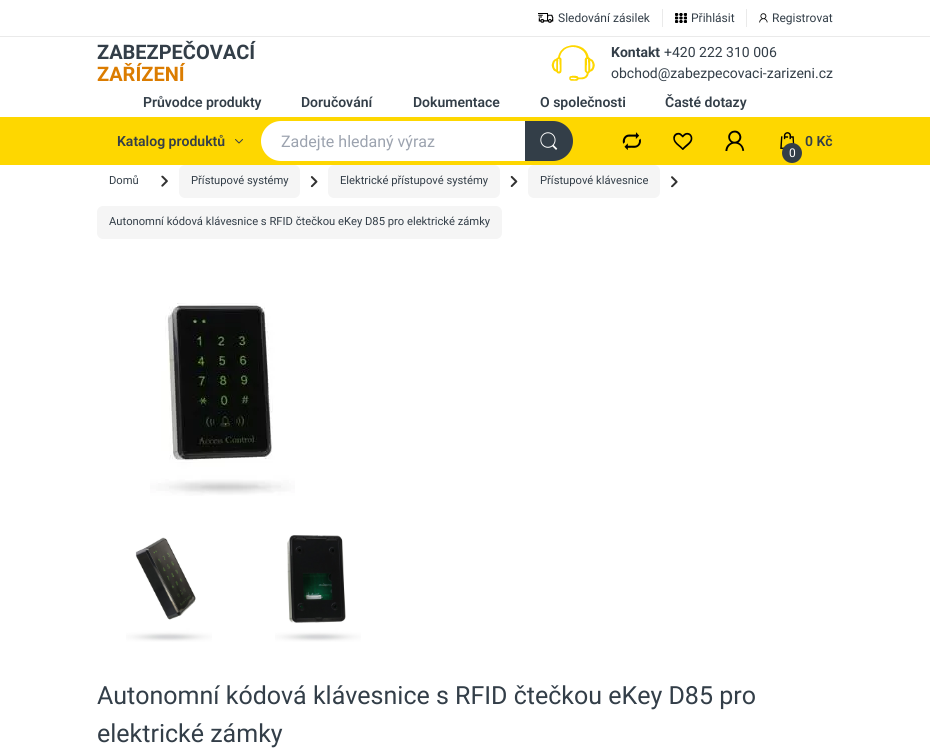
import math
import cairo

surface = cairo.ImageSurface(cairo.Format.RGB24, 930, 755)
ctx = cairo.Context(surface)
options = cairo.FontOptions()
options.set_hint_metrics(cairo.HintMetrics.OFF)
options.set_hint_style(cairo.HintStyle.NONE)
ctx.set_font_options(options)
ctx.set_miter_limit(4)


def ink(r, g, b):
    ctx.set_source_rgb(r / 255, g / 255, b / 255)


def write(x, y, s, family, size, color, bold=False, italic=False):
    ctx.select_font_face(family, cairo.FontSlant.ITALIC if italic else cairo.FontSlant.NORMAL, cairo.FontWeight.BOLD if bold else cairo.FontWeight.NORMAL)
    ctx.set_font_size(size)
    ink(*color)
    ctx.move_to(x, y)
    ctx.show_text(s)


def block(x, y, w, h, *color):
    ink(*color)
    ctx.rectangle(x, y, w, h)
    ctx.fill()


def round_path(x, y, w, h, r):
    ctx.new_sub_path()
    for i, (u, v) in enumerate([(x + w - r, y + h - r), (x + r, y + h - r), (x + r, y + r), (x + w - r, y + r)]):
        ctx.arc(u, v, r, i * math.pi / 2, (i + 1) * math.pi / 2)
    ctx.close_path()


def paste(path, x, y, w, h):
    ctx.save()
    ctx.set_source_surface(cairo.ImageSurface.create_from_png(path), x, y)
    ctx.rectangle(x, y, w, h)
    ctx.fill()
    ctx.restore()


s1 = dict(family="Roboto", size=12, color=(51, 62, 72))
s2 = dict(family="Roboto", size=20, color=(51, 62, 72), bold=True)
s3 = dict(family="Roboto", size=20, color=(219, 124, 0), bold=True)
s4 = dict(family="Roboto", size=14, color=(51, 62, 72), bold=True)
s5 = dict(family="Roboto", size=14, color=(51, 62, 72))
s6 = dict(family="Roboto SemiBold", size=14, color=(51, 62, 72))
s7 = dict(family="Roboto", size=16, color=(156, 163, 175))
s8 = dict(family="Roboto", size=12, color=(255, 255, 255))
s9 = dict(family="Roboto", size=11.2, color=(51, 62, 72))
s10 = dict(family="Roboto", size=25, color=(51, 62, 72))

ink(255, 255, 255)
ctx.paint()
block(0, 36, 930, 1, 234, 234, 234)
paste("pic1.png", 538, 13, 16, 10)
write(558, 22, "Sledování zásilek", **s1)
block(662, 9, 1, 18, 234, 234, 234)
paste("pic2.png", 675, 13, 12, 10)
write(691, 22, "Přihlásit", **s1)
block(746, 9, 1, 18, 234, 234, 234)
paste("pic3.png", 759, 13, 9, 10)
write(772, 22, "Registrovat", **s1)
write(97, 59, "ZABEZPEČOVACÍ", **s2)
write(97, 81, "ZAŘÍZENÍ", **s3)
paste("pic4.png", 551, 45, 44, 36)
write(611, 57, "Kontakt", **s4)
write(664, 57, "+420 222 310 006", **s5)
write(611, 78, "obchod@zabezpecovaci-zarizeni.cz", **s5)
write(143, 107, "Průvodce produkty", **s6)
write(301, 107, "Doručování", **s6)
write(413, 107, "Dokumentace", **s6)
write(540, 107, "O společnosti", **s6)
write(665, 107, "Časté dotazy", **s6)
block(0, 117, 930, 48, 254, 215, 0)
write(117, 146, "Katalog produktů", **s6)
ctx.new_path()
ctx.move_to(242.5, 139.5)
ctx.line_to(239, 143)
ctx.line_to(235.5, 139.5)
ctx.set_line_width(1)
ctx.set_line_cap(cairo.LineCap.ROUND)
ctx.set_line_join(cairo.LineJoin.ROUND)
ctx.stroke()
ink(255, 255, 255)
ctx.new_path()
ctx.move_to(281, 121)
ctx.line_to(525, 121)
ctx.line_to(525, 161)
ctx.line_to(281, 161)
ctx.curve_to(270, 161, 261, 152, 261, 141)
ctx.curve_to(261, 130, 270, 121, 281, 121)
ctx.close_path()
ctx.fill()
write(281, 147, "Zadejte hledaný výraz", **s7)
ink(51, 62, 72)
ctx.new_path()
ctx.move_to(525, 121)
ctx.line_to(553, 121)
ctx.curve_to(564, 121, 573, 130, 573, 141)
ctx.curve_to(573, 152, 564, 161, 553, 161)
ctx.line_to(525, 161)
ctx.close_path()
ctx.fill()
paste("pic5.png", 540, 132, 18, 18)
paste("pic6.png", 622, 132, 19, 18)
paste("pic7.png", 673, 132, 20, 18)
paste("pic8.png", 725, 130, 20, 21)
paste("pic9.png", 780, 132, 15, 17)
write(805, 146, "0 Kč", **s6)
ctx.new_path()
ctx.arc(792, 153, 10, 0, 2 * math.pi)
ctx.fill()
write(789, 157, "0", **s8)
write(109, 184, "Domů", **s9)
paste("pic10.png", 161, 175, 7, 12)
ink(245, 245, 245)
round_path(179, 165, 121, 33, 6)
ctx.fill()
write(191, 184, "Přístupové systémy", **s9)
paste("pic11.png", 310, 176, 8, 12)
ink(245, 245, 245)
round_path(328, 165, 172, 33, 6)
ctx.fill()
write(340, 184, "Elektrické přístupové systémy", **s9)
paste("pic12.png", 510, 175, 8, 12)
ink(245, 245, 245)
round_path(528, 165, 132, 33, 6)
ctx.fill()
write(540, 184, "Přístupové klávesnice", **s9)
paste("pic13.png", 671, 176, 7, 12)
ink(245, 245, 245)
round_path(97, 206, 405, 33, 6)
ctx.fill()
write(109, 225, "Autonomní kódová klávesnice s RFID čtečkou eKey D85 pro elektrické zámky", **s9)
paste("pic14.png", 150, 303, 145, 193)
paste("pic15.png", 126, 537, 86, 105)
paste("pic16.png", 275, 535, 86, 107)
write(97, 704, "Autonomní kódová klávesnice s RFID čtečkou eKey D85 pro", **s10)
write(97, 742, "elektrické zámky", **s10)
surface.write_to_png("screenshot.png")
